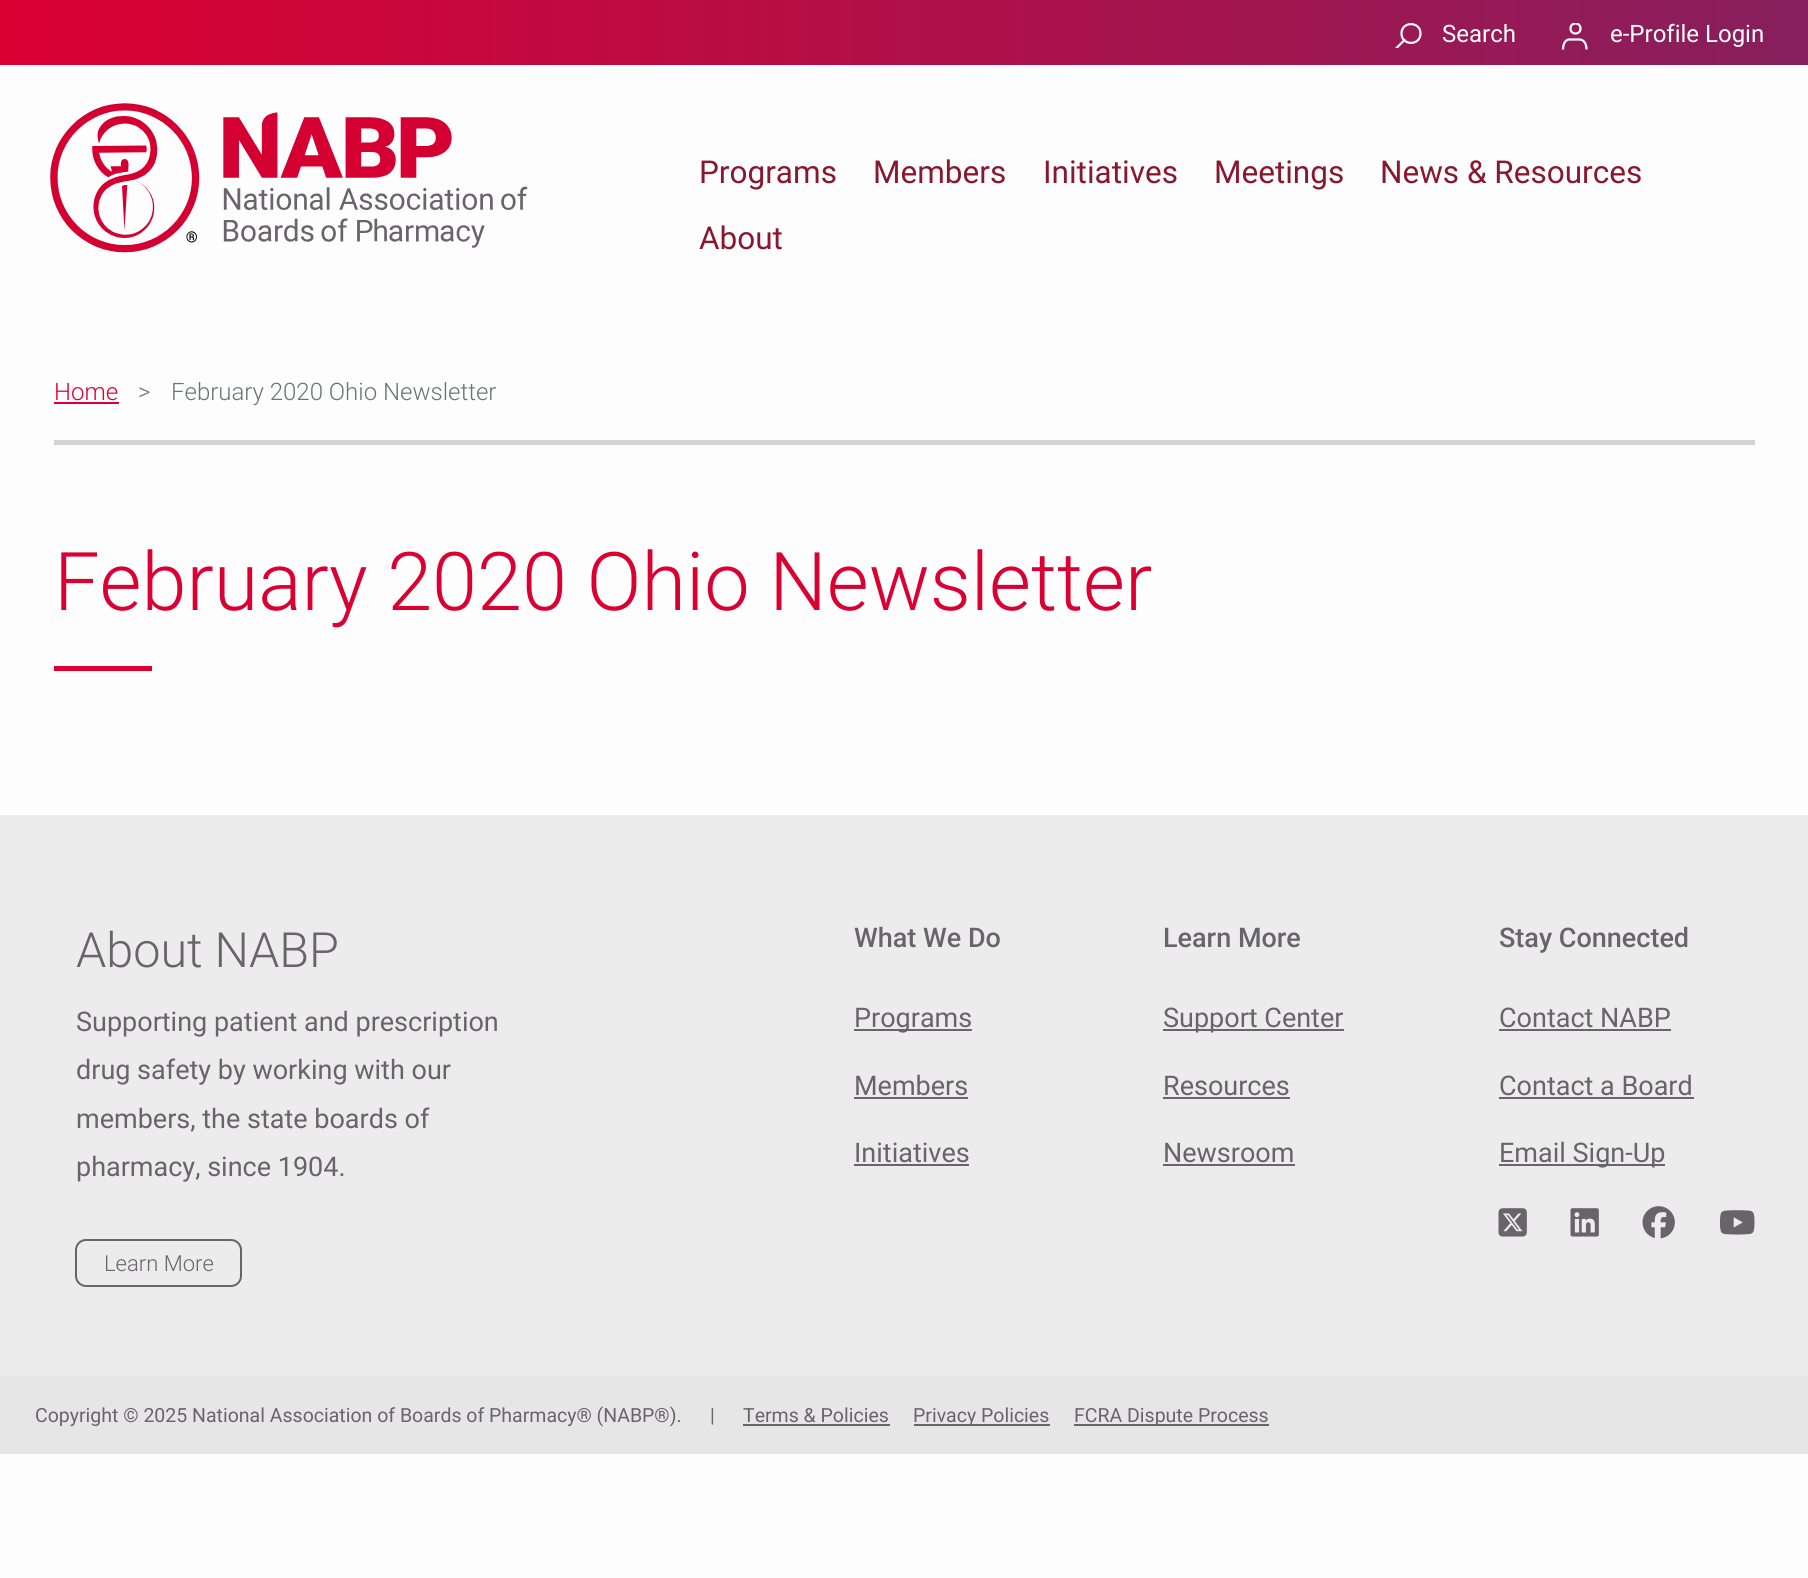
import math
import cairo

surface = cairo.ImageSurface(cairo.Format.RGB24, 1808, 1578)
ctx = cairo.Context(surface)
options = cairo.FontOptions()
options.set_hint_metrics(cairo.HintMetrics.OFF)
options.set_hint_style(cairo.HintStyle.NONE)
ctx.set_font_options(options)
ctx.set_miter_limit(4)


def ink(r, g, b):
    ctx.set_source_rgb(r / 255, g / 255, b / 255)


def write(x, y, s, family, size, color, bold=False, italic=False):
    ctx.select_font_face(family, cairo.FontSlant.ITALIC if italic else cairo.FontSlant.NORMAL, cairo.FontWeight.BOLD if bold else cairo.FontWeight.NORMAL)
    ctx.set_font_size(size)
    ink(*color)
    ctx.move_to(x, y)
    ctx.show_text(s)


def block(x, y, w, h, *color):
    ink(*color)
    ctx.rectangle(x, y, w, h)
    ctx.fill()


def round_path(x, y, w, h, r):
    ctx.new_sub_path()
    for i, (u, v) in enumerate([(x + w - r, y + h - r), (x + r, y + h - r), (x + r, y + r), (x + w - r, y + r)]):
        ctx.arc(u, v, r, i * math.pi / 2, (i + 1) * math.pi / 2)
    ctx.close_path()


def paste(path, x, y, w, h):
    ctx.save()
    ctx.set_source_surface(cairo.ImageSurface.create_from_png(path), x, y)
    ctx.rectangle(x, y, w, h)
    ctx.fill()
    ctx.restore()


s1 = dict(family="Roboto", size=24, color=(255, 255, 255))
s2 = dict(family="Roboto", size=31.5, color=(136, 24, 47))
s3 = dict(family="Roboto Light", size=24, color=(219, 0, 50))
s4 = dict(family="Roboto Light", size=24, color=(110, 114, 114))
s5 = dict(family="Roboto Light", size=81, color=(219, 0, 50))
s6 = dict(family="Roboto Light", size=48.5, color=(105, 99, 106))
s7 = dict(family="Roboto", size=27, color=(105, 99, 106))
s8 = dict(family="Roboto Light", size=22, color=(105, 99, 106))
s9 = dict(family="Roboto Medium", size=27, color=(105, 99, 106))
s10 = dict(family="Roboto", size=19.5, color=(105, 99, 106))

ink(253, 253, 253)
ctx.paint()
gradient = cairo.LinearGradient(0, 32, 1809, 32)
gradient.add_color_stop_rgba(0, 0.859, 0, 0.196, 1)
gradient.add_color_stop_rgba(1, 0.529, 0.122, 0.369, 1)
ctx.set_source(gradient)
ctx.rectangle(0, 0, 1808, 65)
ctx.fill()
write(1442, 42, "Search", **s1)
ctx.new_path()
ctx.move_to(1401.5, 33.5)
ctx.curve_to(1401.5, 46, 1420.5, 46, 1420.5, 33.5)
ctx.curve_to(1420.5, 21, 1401.5, 21, 1401.5, 33.5)
ctx.close_path()
ctx.set_line_width(2.2)
ctx.set_line_cap(cairo.LineCap.ROUND)
ctx.set_line_join(cairo.LineJoin.ROUND)
ctx.stroke()
ctx.save()
ctx.rectangle(1394, 23, 28, 25)
ctx.clip()
ctx.new_path()
ctx.move_to(1404.5, 40)
ctx.line_to(1395, 49.5)
ctx.stroke()
ctx.restore()
write(1610, 42, "e-Profile Login", **s1)
ctx.save()
ctx.rectangle(1562, 23, 27, 28)
ctx.clip()
ctx.arc(1575.5, 28.5, 5, 0, 2 * math.pi)
ctx.set_line_cap(cairo.LineCap.BUTT)
ctx.set_line_join(cairo.LineJoin.MITER)
ctx.stroke()
ctx.restore()
ctx.new_path()
ctx.move_to(1563, 49.5)
ctx.curve_to(1563, 46.5, 1564, 39.5, 1569.5, 39.5)
ctx.line_to(1579.5, 39.5)
ctx.curve_to(1582, 39.5, 1586.5, 41.5, 1586.5, 49.5)
ctx.set_line_cap(cairo.LineCap.BUTT)
ctx.set_line_join(cairo.LineJoin.MITER)
ctx.stroke()
paste("pic1.png", 50, 103, 478, 150)
write(699, 183, "Programs", **s2)
write(873, 183, "Members", **s2)
write(1043, 183, "Initiatives", **s2)
write(1214, 183, "Meetings", **s2)
write(1380, 183, "News & Resources", **s2)
write(699, 249, "About", **s2)
block(54, 440, 1701, 5, 211, 211, 211)
write(54, 400, "Home", **s3)
block(54, 402, 65, 2, 219, 0, 50)
write(138, 400, ">", **s4)
write(171, 400, "February 2020 Ohio Newsletter", **s4)
write(54, 610, "February 2020 Ohio Newsletter", **s5)
block(54, 666, 98, 5, 219, 0, 50)
block(0, 815, 1808, 561, 236, 236, 236)
write(76, 967, "About NABP", **s6)
write(76, 1031, "Supporting patient and prescription", **s7)
write(76, 1079, "drug safety by working with our", **s7)
write(76, 1128, "members, the state boards of", **s7)
write(76, 1176, "pharmacy, since 1904.", **s7)
round_path(76, 1240, 165, 46, 10)
ctx.set_line_width(2)
ctx.stroke()
write(104, 1271, "Learn More", **s8)
write(854, 947, "What We Do", **s9)
block(854, 1029, 118, 2, 105, 99, 106)
write(854, 1027, "Programs", **s7)
write(854, 1095, "Members", **s7)
block(854, 1097, 114, 2, 105, 99, 106)
write(854, 1162, "Initiatives", **s7)
block(854, 1164, 115, 2, 105, 99, 106)
write(1163, 947, "Learn More", **s9)
block(1163, 1029, 181, 2, 105, 99, 106)
write(1163, 1027, "Support Center", **s7)
write(1163, 1095, "Resources", **s7)
block(1163, 1097, 127, 2, 105, 99, 106)
write(1163, 1162, "Newsroom", **s7)
block(1163, 1164, 132, 2, 105, 99, 106)
write(1499, 947, "Stay Connected", **s9)
write(1499, 1027, "Contact NABP", **s7)
block(1499, 1029, 172, 2, 105, 99, 106)
write(1499, 1095, "Contact a Board", **s7)
block(1499, 1097, 195, 2, 105, 99, 106)
block(1499, 1164, 166, 2, 105, 99, 106)
write(1499, 1162, "Email Sign-Up", **s7)
paste("pic2.png", 1498, 1208, 29, 29)
paste("pic3.png", 1570, 1208, 29, 29)
paste("pic4.png", 1642, 1206, 33, 33)
paste("pic5.png", 1719, 1210, 36, 25)
block(0, 1376, 1808, 78, 231, 230, 231)
write(35, 1422, "Copyright © 2025 National Association of Boards of Pharmacy® (NABP®).", **s10)
write(710, 1422, "|", **s10)
write(743, 1422, "Terms & Policies", **s10)
block(743, 1424, 147, 2, 105, 99, 106)
block(914, 1424, 136, 2, 105, 99, 106)
write(913, 1422, "Privacy Policies", **s10)
block(1074, 1424, 195, 2, 105, 99, 106)
write(1074, 1422, "FCRA Dispute Process", **s10)
surface.write_to_png("screenshot.png")
